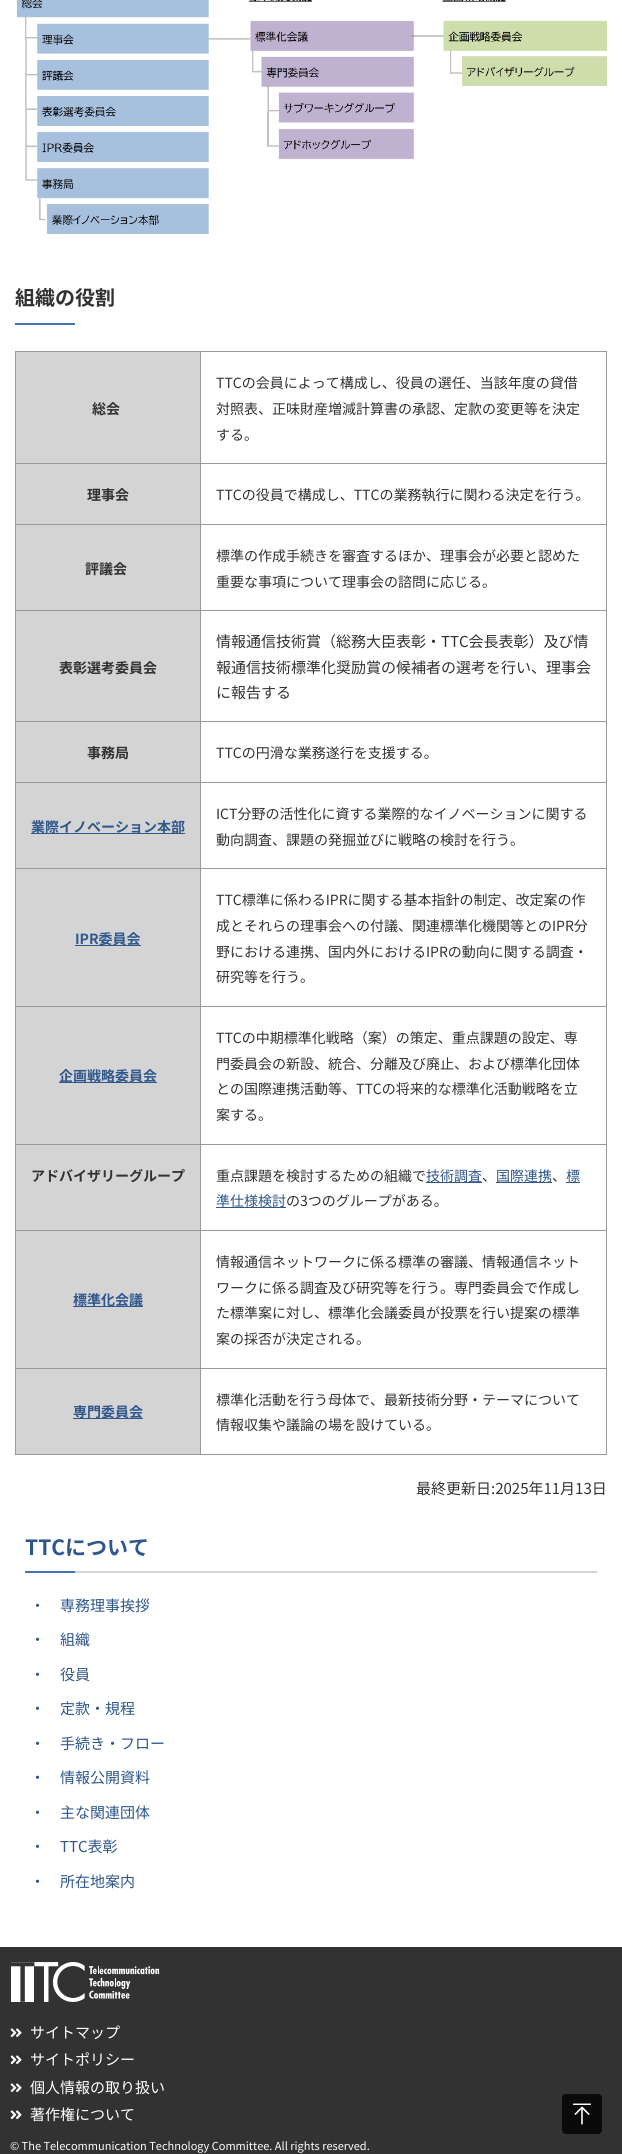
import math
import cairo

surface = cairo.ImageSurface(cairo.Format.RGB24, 622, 2154)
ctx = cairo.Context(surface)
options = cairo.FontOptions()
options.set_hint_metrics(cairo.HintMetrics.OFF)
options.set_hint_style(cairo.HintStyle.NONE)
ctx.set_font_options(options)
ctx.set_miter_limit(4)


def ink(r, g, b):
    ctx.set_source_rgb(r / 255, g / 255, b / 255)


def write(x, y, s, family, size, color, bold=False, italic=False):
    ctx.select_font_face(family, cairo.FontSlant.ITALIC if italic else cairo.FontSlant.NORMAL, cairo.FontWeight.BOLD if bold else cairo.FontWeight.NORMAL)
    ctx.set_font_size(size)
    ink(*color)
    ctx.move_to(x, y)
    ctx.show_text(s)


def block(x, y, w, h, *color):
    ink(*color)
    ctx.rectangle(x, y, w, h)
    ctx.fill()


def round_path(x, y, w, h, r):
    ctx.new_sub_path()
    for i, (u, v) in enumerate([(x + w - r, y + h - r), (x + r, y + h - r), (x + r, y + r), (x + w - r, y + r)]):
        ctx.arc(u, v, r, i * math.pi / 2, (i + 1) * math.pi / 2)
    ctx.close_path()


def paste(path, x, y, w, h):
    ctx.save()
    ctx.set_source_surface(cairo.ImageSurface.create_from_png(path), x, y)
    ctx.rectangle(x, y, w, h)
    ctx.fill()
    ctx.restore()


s1 = dict(family="Noto Sans JP", size=20, color=(50, 50, 50), bold=True)
s2 = dict(family="Noto Sans JP", size=14, color=(50, 50, 50), bold=True)
s3 = dict(family="Noto Sans JP", size=14, color=(50, 50, 50))
s4 = dict(family="Noto Sans JP", size=15, color=(50, 50, 50))
s5 = dict(family="Noto Sans JP", size=14, color=(47, 87, 140), bold=True)
s6 = dict(family="Noto Sans JP", size=14, color=(47, 87, 140))
s7 = dict(family="Noto Sans JP", size=21, color=(47, 87, 140), bold=True)
s8 = dict(family="Noto Sans JP", size=15, color=(47, 87, 140))
s9 = dict(family="Noto Sans JP", size=15, color=(255, 255, 255))
s10 = dict(family="Noto Sans JP", size=11, color=(255, 255, 255))

ink(255, 255, 255)
ctx.paint()
paste("pic1.png", 16, 0, 591, 234)
write(15, 305, "組織の役割", **s1)
block(15, 323, 60, 2, 67, 115, 179)
block(15, 351, 592, 1, 153, 153, 153)
block(15, 351, 1, 1104, 153, 153, 153)
block(16, 352, 184, 111, 212, 212, 212)
block(606, 351, 1, 1104, 153, 153, 153)
block(200, 1454, 407, 1, 153, 153, 153)
block(200, 1368, 1, 87, 153, 153, 153)
block(200, 1368, 407, 1, 153, 153, 153)
block(200, 1230, 1, 139, 153, 153, 153)
block(200, 1230, 407, 1, 153, 153, 153)
block(200, 1144, 1, 87, 153, 153, 153)
block(200, 1144, 407, 1, 153, 153, 153)
block(200, 1006, 1, 139, 153, 153, 153)
block(200, 1006, 407, 1, 153, 153, 153)
block(200, 868, 1, 139, 153, 153, 153)
block(200, 868, 407, 1, 153, 153, 153)
block(200, 782, 1, 87, 153, 153, 153)
block(200, 782, 407, 1, 153, 153, 153)
block(200, 721, 1, 62, 153, 153, 153)
block(200, 721, 407, 1, 153, 153, 153)
block(200, 610, 1, 112, 153, 153, 153)
block(200, 610, 407, 1, 153, 153, 153)
block(200, 524, 1, 87, 153, 153, 153)
block(200, 524, 407, 1, 153, 153, 153)
block(200, 463, 1, 62, 153, 153, 153)
block(200, 463, 407, 1, 153, 153, 153)
block(200, 351, 1, 113, 153, 153, 153)
block(15, 463, 186, 1, 153, 153, 153)
write(92, 414, "総会", **s2)
write(216, 388, "TTCの会員によって構成し、役員の選任、当該年度の貸借", **s3)
write(216, 414, "対照表、正味財産増減計算書の承認、定款の変更等を決定", **s3)
write(216, 440, "する。", **s3)
block(16, 464, 184, 60, 212, 212, 212)
block(15, 524, 186, 1, 153, 153, 153)
write(87, 500, "理事会", **s2)
write(216, 500, "TTCの役員で構成し、TTCの業務執行に関わる決定を行う。", **s3)
block(16, 525, 184, 85, 212, 212, 212)
block(15, 610, 186, 1, 153, 153, 153)
write(85, 574, "評議会", **s2)
write(216, 561, "標準の作成手続きを審査するほか、理事会が必要と認めた", **s3)
write(216, 587, "重要な事項について理事会の諮問に応じる。", **s3)
block(16, 611, 184, 110, 212, 212, 212)
block(15, 721, 186, 1, 153, 153, 153)
write(59, 673, "表彰選考委員会", **s2)
write(216, 647, "情報通信技術賞（総務大臣表彰・TTC会長表彰）及び情", **s4)
write(216, 673, "報通信技術標準化奨励賞の候補者の選考を行い、理事会", **s4)
write(216, 698, "に報告する", **s4)
block(16, 722, 184, 60, 212, 212, 212)
block(15, 782, 186, 1, 153, 153, 153)
write(87, 758, "事務局", **s2)
write(216, 758, "TTCの円滑な業務遂行を支援する。", **s3)
block(16, 783, 184, 85, 212, 212, 212)
block(15, 868, 186, 1, 153, 153, 153)
block(31, 833, 154, 1, 47, 87, 140)
write(31, 832, "業際イノベーション本部", **s5)
write(216, 819, "ICT分野の活性化に資する業際的なイノベーションに関する", **s3)
write(216, 845, "動向調査、課題の発掘並びに戦略の検討を行う。", **s3)
block(16, 869, 184, 137, 212, 212, 212)
block(15, 1006, 186, 1, 153, 153, 153)
block(75, 945, 66, 1, 47, 87, 140)
write(75, 944, "IPR委員会", **s5)
write(216, 905, "TTC標準に係わるIPRに関する基本指針の制定、改定案の作", **s3)
write(216, 931, "成とそれらの理事会への付議、関連標準化機関等とのIPR分", **s3)
write(216, 957, "野における連携、国内外におけるIPRの動向に関する調査・", **s3)
write(216, 982, "研究等を行う。", **s3)
block(16, 1007, 184, 137, 212, 212, 212)
block(15, 1144, 186, 1, 153, 153, 153)
block(59, 1082, 98, 1, 47, 87, 140)
write(59, 1081, "企画戦略委員会", **s5)
write(216, 1043, "TTCの中期標準化戦略（案）の策定、重点課題の設定、専", **s3)
write(216, 1069, "門委員会の新設、統合、分離及び廃止、および標準化団体", **s3)
write(216, 1094, "との国際連携活動等、TTCの将来的な標準化活動戦略を立", **s3)
write(216, 1120, "案する。", **s3)
block(16, 1145, 184, 85, 212, 212, 212)
block(15, 1230, 186, 1, 153, 153, 153)
write(31, 1181, "アドバイザリーグループ", **s2)
write(216, 1181, "重点課題を検討するための組織で", **s3)
block(426, 1182, 56, 1, 47, 87, 140)
write(426, 1181, "技術調査", **s6)
write(482, 1181, "、", **s3)
block(496, 1182, 56, 1, 47, 87, 140)
write(496, 1181, "国際連携", **s6)
write(552, 1181, "、", **s3)
block(566, 1182, 14, 1, 47, 87, 140)
write(566, 1181, "標", **s6)
block(216, 1207, 70, 1, 47, 87, 140)
write(216, 1206, "準仕様検討", **s6)
write(286, 1206, "の3つのグループがある。", **s3)
block(16, 1231, 184, 137, 212, 212, 212)
block(15, 1368, 186, 1, 153, 153, 153)
block(73, 1306, 70, 1, 47, 87, 140)
write(73, 1305, "標準化会議", **s5)
write(216, 1267, "情報通信ネットワークに係る標準の審議、情報通信ネット", **s3)
write(216, 1293, "ワークに係る調査及び研究等を行う。専門委員会で作成し", **s3)
write(216, 1318, "た標準案に対し、標準化会議委員が投票を行い提案の標準", **s3)
write(216, 1344, "案の採否が決定される。", **s3)
block(16, 1369, 184, 85, 212, 212, 212)
block(15, 1454, 186, 1, 153, 153, 153)
block(73, 1418, 70, 1, 47, 87, 140)
write(73, 1417, "専門委員会", **s5)
write(216, 1405, "標準化活動を行う母体で、最新技術分野・テーマについて", **s3)
write(216, 1430, "情報収集や議論の場を設けている。", **s3)
write(416, 1494, "最終更新日:2025年11月13日", **s4)
write(25, 1555, "TTCについて", **s7)
block(25, 1571, 50, 2, 67, 115, 179)
block(75, 1571, 522, 2, 212, 212, 212)
write(30, 1611, "・", **s8)
write(60, 1611, "専務理事挨拶", **s8)
write(30, 1645, "・", **s8)
write(60, 1645, "組織", **s8)
write(30, 1680, "・", **s8)
write(60, 1680, "役員", **s8)
write(30, 1714, "・", **s8)
write(60, 1714, "定款・規程", **s8)
write(30, 1749, "・", **s8)
write(60, 1749, "手続き・フロー", **s8)
write(30, 1783, "・", **s8)
write(60, 1783, "情報公開資料", **s8)
write(30, 1818, "・", **s8)
write(60, 1818, "主な関連団体", **s8)
write(30, 1852, "・", **s8)
write(60, 1852, "TTC表彰", **s8)
write(30, 1887, "・", **s8)
write(60, 1887, "所在地案内", **s8)
block(0, 1947, 622, 207, 50, 50, 50)
paste("pic2.png", 11, 1962, 149, 40)
paste("pic3.png", 10, 2028, 12, 10)
write(30, 2038, "サイトマップ", **s9)
paste("pic3.png", 10, 2055, 12, 10)
write(30, 2065, "サイトポリシー", **s9)
paste("pic3.png", 10, 2083, 12, 10)
write(30, 2093, "個人情報の取り扱い", **s9)
paste("pic3.png", 10, 2110, 12, 10)
write(30, 2120, "著作権について", **s9)
write(10, 2150, "© The Telecommunication Technology Committee. All rights reserved.", **s10)
ink(10, 10, 10)
round_path(562, 2094, 40, 40, 4)
ctx.fill()
paste("pic4.png", 573, 2103, 18, 22)
surface.write_to_png("screenshot.png")
